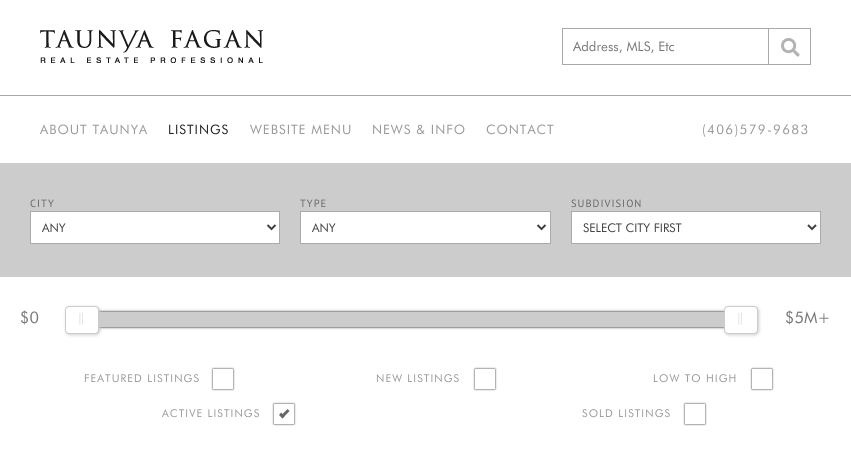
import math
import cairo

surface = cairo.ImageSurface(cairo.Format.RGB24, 851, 449)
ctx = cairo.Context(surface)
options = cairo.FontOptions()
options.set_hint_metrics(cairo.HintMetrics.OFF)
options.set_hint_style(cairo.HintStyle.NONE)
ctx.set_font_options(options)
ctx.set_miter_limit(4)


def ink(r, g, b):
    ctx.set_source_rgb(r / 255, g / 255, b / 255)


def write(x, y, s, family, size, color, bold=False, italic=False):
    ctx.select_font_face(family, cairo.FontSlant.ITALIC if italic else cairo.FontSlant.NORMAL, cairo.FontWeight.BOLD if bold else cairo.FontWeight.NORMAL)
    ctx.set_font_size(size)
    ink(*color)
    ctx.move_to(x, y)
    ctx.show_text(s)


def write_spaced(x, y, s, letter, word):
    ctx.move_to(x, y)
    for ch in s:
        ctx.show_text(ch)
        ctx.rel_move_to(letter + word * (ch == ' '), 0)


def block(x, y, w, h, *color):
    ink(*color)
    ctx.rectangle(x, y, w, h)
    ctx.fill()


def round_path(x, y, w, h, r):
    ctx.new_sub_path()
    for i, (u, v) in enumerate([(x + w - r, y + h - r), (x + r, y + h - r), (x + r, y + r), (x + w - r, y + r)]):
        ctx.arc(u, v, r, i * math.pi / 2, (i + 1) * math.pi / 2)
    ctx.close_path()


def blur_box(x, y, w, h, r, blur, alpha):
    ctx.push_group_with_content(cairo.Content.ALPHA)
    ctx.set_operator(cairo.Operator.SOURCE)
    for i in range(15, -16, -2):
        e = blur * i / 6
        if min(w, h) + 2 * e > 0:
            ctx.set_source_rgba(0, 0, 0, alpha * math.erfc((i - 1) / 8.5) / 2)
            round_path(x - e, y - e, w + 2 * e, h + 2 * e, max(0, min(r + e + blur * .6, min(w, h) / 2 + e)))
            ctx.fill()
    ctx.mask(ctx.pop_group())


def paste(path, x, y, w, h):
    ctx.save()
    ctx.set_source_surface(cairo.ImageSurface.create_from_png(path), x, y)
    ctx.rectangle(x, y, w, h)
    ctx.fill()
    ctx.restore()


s1 = dict(family="Futura", size=13.25, color=(119, 119, 119))
s2 = dict(family="Futura", size=12, color=(64, 64, 64))
s3 = dict(family="Futura", size=16, color=(119, 119, 119))

ink(255, 255, 255)
ctx.paint()
paste("pic1.png", 40, 30, 223, 33)
ctx.rectangle(562.5, 28.5, 248, 36)
ink(170, 170, 170)
ctx.set_line_width(1)
ctx.stroke()
write(573, 51, "Address, MLS, Etc", **s1)
block(768, 29, 1, 35, 170, 170, 170)
paste("pic2.png", 781, 38, 19, 19)
block(0, 95, 851, 1, 170, 170, 170)
ctx.set_font_size(13)
ink(153, 153, 153)
write_spaced(40, 134, "ABOUT TAUNYA", 1, 0)
ink(34, 34, 34)
write_spaced(168, 134, "LISTINGS", 1, 0)
ink(153, 153, 153)
write_spaced(250, 134, "WEBSITE MENU", 1, 0)
write_spaced(372, 134, "NEWS & INFO", 1, 0)
write_spaced(486, 134, "CONTACT", 1, 0)
ctx.set_font_size(13.25)
write_spaced(702, 134, "(406)579-9683", 1.3, 0)
block(0, 163, 851, 114, 204, 204, 204)
ctx.select_font_face("PT Sans")
ctx.set_font_size(10.5)
ink(103, 103, 103)
write_spaced(30, 207, "CITY", 1, 0)
ink(255, 255, 255)
ctx.rectangle(30.5, 211.5, 249, 32)
ctx.fill_preserve()
ink(170, 170, 170)
ctx.stroke()
ctx.new_path()
ctx.move_to(267.5, 225)
ctx.line_to(271.5, 229)
ctx.line_to(275.5, 225)
ink(64, 64, 64)
ctx.set_line_width(2)
ctx.stroke()
write(42, 232, "ANY", **s2)
ctx.select_font_face("PT Sans")
ctx.set_font_size(10.5)
ink(103, 103, 103)
write_spaced(300, 207, "TYPE", 1, 0)
ink(255, 255, 255)
ctx.rectangle(300.5, 211.5, 250, 32)
ctx.fill_preserve()
ink(170, 170, 170)
ctx.set_line_width(1)
ctx.stroke()
ctx.new_path()
ctx.move_to(537.5, 225)
ctx.line_to(541.5, 229)
ctx.line_to(545.5, 225)
ink(64, 64, 64)
ctx.set_line_width(2)
ctx.stroke()
write(312, 232, "ANY", **s2)
ctx.select_font_face("PT Sans")
ctx.set_font_size(10.5)
ink(103, 103, 103)
write_spaced(571, 207, "SUBDIVISION", 1, 0)
ink(255, 255, 255)
ctx.rectangle(571.5, 211.5, 249, 32)
ctx.fill_preserve()
ink(170, 170, 170)
ctx.set_line_width(1)
ctx.stroke()
ctx.new_path()
ctx.move_to(808, 225)
ctx.line_to(812, 229)
ctx.line_to(816, 225)
ink(64, 64, 64)
ctx.set_line_width(2)
ctx.stroke()
write(583, 232, "SELECT CITY FIRST", **s2)
write(20, 323, "$0", **s3)
ctx.rectangle(75.5, 311.5, 660, 16)
ink(221, 221, 221)
ctx.set_line_width(1)
ctx.stroke()
ink(51, 51, 51)
blur_box(76, 312, 659, 15, 4, 1.5, 1)
block(99, 312, 625, 15, 204, 204, 204)
ink(204, 204, 204)
blur_box(66, 307, 34, 28, 4, 1.5, 1)
ink(255, 255, 255)
round_path(65.5, 306.5, 33, 27, 3.5)
ctx.fill_preserve()
ink(204, 204, 204)
ctx.stroke()
ctx.select_font_face("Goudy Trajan")
ctx.set_font_size(15)
ink(221, 221, 221)
write_spaced(78, 324, "||", -1, 0)
ink(204, 204, 204)
blur_box(725, 307, 34, 28, 4, 1.5, 1)
ink(255, 255, 255)
round_path(724.5, 306.5, 33, 27, 3.5)
ctx.fill_preserve()
ink(204, 204, 204)
ctx.stroke()
ink(221, 221, 221)
write_spaced(737, 324, "||", -1, 0)
write(785, 323, "$5M+", **s3)
ctx.set_font_size(10.75)
ink(153, 153, 153)
write_spaced(84, 382, "FEATURED LISTINGS", 1.1, 0)
ctx.save()
ctx.set_fill_rule(cairo.FillRule.EVEN_ODD)
ctx.new_path()
ctx.move_to(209, 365)
ctx.line_to(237, 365)
ctx.line_to(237, 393)
ctx.line_to(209, 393)
ctx.close_path()
ctx.move_to(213, 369)
ctx.line_to(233, 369)
ctx.line_to(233, 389)
ctx.line_to(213, 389)
ctx.close_path()
ctx.clip()
ink(34, 34, 34)
blur_box(213, 369, 20, 20, 0, 1, 1)
ctx.restore()
write_spaced(376, 382, "NEW LISTINGS", 1.1, 0)
ctx.save()
ctx.set_fill_rule(cairo.FillRule.EVEN_ODD)
ctx.new_path()
ctx.move_to(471, 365)
ctx.line_to(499, 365)
ctx.line_to(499, 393)
ctx.line_to(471, 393)
ctx.close_path()
ctx.move_to(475, 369)
ctx.line_to(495, 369)
ctx.line_to(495, 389)
ctx.line_to(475, 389)
ctx.close_path()
ctx.clip()
ink(34, 34, 34)
blur_box(475, 369, 20, 20, 0, 1, 1)
ctx.restore()
write_spaced(653, 382, "LOW TO HIGH", 1.1, 0)
ctx.save()
ctx.set_fill_rule(cairo.FillRule.EVEN_ODD)
ctx.new_path()
ctx.move_to(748, 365)
ctx.line_to(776, 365)
ctx.line_to(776, 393)
ctx.line_to(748, 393)
ctx.close_path()
ctx.move_to(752, 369)
ctx.line_to(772, 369)
ctx.line_to(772, 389)
ctx.line_to(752, 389)
ctx.close_path()
ctx.clip()
ink(34, 34, 34)
blur_box(752, 369, 20, 20, 0, 1, 1)
ctx.restore()
write_spaced(162, 417, "ACTIVE LISTINGS", 1.1, 0)
ctx.save()
ctx.set_fill_rule(cairo.FillRule.EVEN_ODD)
ctx.new_path()
ctx.move_to(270, 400)
ctx.line_to(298, 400)
ctx.line_to(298, 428)
ctx.line_to(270, 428)
ctx.close_path()
ctx.move_to(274, 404)
ctx.line_to(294, 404)
ctx.line_to(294, 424)
ctx.line_to(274, 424)
ctx.close_path()
ctx.clip()
ink(34, 34, 34)
blur_box(274, 404, 20, 20, 0, 1, 1)
ctx.restore()
ink(103, 103, 103)
ctx.new_path()
ctx.move_to(287.5, 409)
ctx.line_to(289.5, 411)
ctx.line_to(282.5, 418.5)
ctx.line_to(280.5, 416)
ctx.close_path()
ctx.fill()
ctx.new_path()
ctx.move_to(281, 412.5)
ctx.line_to(284.5, 416)
ctx.line_to(282.5, 418.5)
ctx.line_to(279, 415)
ctx.close_path()
ctx.fill()
ink(153, 153, 153)
write_spaced(582, 417, "SOLD LISTINGS", 1.1, 0)
ctx.save()
ctx.set_fill_rule(cairo.FillRule.EVEN_ODD)
ctx.new_path()
ctx.move_to(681, 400)
ctx.line_to(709, 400)
ctx.line_to(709, 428)
ctx.line_to(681, 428)
ctx.close_path()
ctx.move_to(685, 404)
ctx.line_to(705, 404)
ctx.line_to(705, 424)
ctx.line_to(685, 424)
ctx.close_path()
ctx.clip()
ink(34, 34, 34)
blur_box(685, 404, 20, 20, 0, 1, 1)
ctx.restore()
surface.write_to_png("screenshot.png")
